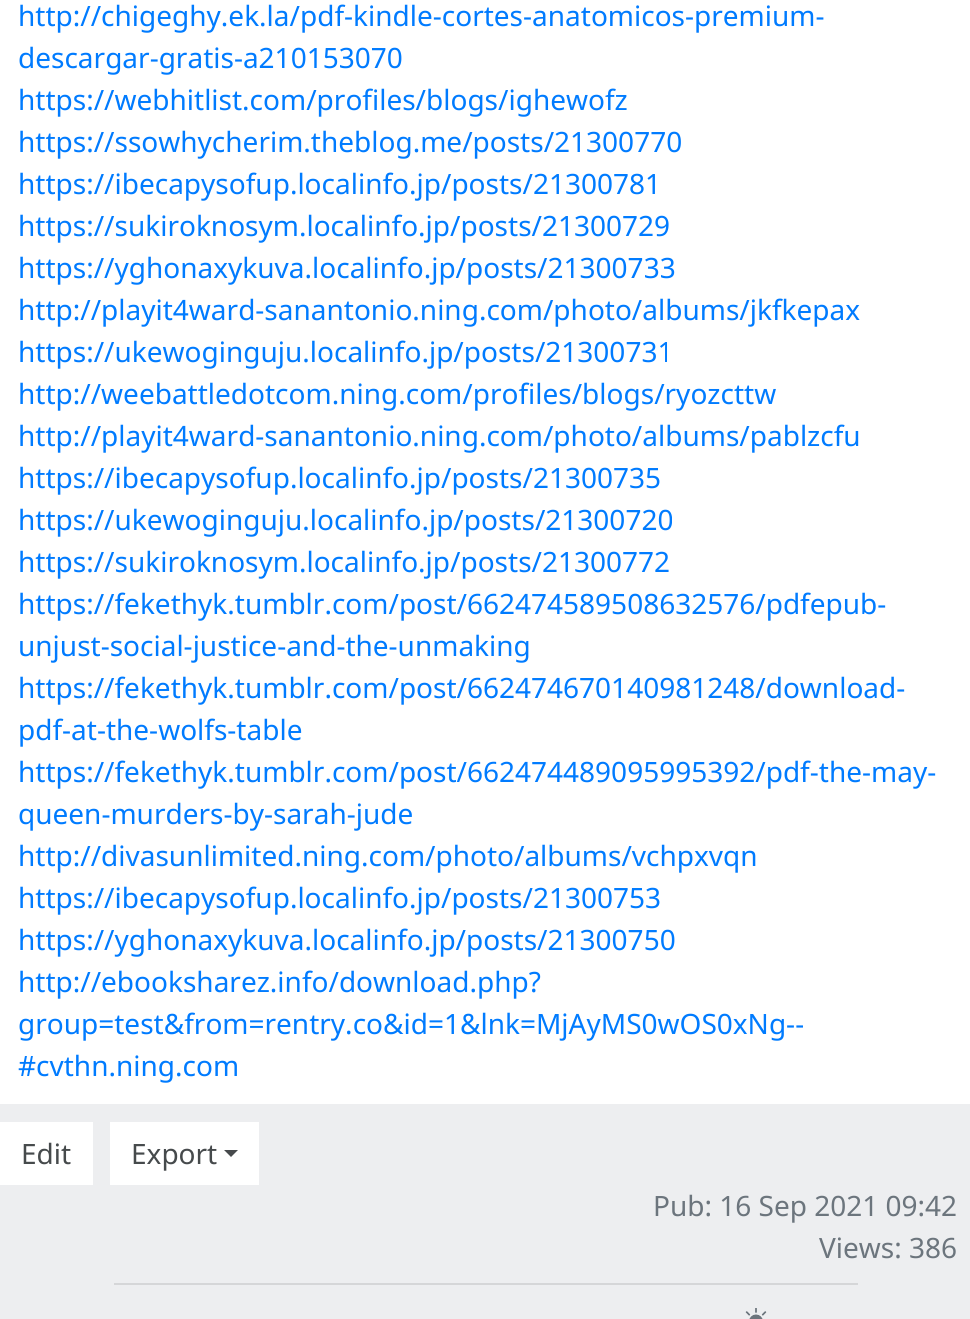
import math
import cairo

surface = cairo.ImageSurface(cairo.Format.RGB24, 970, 1319)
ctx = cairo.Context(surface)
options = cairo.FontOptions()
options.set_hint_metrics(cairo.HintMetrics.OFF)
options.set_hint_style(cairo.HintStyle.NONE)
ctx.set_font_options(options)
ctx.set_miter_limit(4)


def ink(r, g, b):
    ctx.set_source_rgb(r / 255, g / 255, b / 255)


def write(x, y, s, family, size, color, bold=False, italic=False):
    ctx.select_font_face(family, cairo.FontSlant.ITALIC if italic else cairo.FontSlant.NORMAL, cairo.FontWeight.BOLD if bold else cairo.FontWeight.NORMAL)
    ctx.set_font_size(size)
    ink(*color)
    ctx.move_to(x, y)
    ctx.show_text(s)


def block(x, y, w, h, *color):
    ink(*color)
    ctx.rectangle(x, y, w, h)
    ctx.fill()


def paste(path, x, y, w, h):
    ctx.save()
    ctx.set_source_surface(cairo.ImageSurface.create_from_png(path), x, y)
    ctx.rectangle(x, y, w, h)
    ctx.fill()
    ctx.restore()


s1 = dict(family="Noto Sans", size=28, color=(0, 123, 255))
s2 = dict(family="Noto Sans", size=28, color=(70, 74, 76))
s3 = dict(family="Noto Sans", size=28, color=(108, 117, 125))

ink(237, 238, 240)
ctx.paint()
block(0, 0, 970, 1104, 255, 255, 255)
write(18, 26, "http://chigeghy.ek.la/pdf-kindle-cortes-anatomicos-premium-", **s1)
write(18, 68, "descargar-gratis-a210153070", **s1)
write(18, 110, "https://webhitlist.com/profiles/blogs/ighewofz", **s1)
write(18, 152, "https://ssowhycherim.theblog.me/posts/21300770", **s1)
write(18, 194, "https://ibecapysofup.localinfo.jp/posts/21300781", **s1)
write(18, 236, "https://sukiroknosym.localinfo.jp/posts/21300729", **s1)
write(18, 278, "https://yghonaxykuva.localinfo.jp/posts/21300733", **s1)
write(18, 320, "http://playit4ward-sanantonio.ning.com/photo/albums/jkfkepax", **s1)
write(18, 362, "https://ukewoginguju.localinfo.jp/posts/21300731", **s1)
write(18, 404, "http://weebattledotcom.ning.com/profiles/blogs/ryozcttw", **s1)
write(18, 446, "http://playit4ward-sanantonio.ning.com/photo/albums/pablzcfu", **s1)
write(18, 488, "https://ibecapysofup.localinfo.jp/posts/21300735", **s1)
write(18, 530, "https://ukewoginguju.localinfo.jp/posts/21300720", **s1)
write(18, 572, "https://sukiroknosym.localinfo.jp/posts/21300772", **s1)
write(18, 614, "https://fekethyk.tumblr.com/post/662474589508632576/pdfepub-", **s1)
write(18, 656, "unjust-social-justice-and-the-unmaking", **s1)
write(18, 698, "https://fekethyk.tumblr.com/post/662474670140981248/download-", **s1)
write(18, 740, "pdf-at-the-wolfs-table", **s1)
write(18, 782, "https://fekethyk.tumblr.com/post/662474489095995392/pdf-the-may-", **s1)
write(18, 824, "queen-murders-by-sarah-jude", **s1)
write(18, 866, "http://divasunlimited.ning.com/photo/albums/vchpxvqn", **s1)
write(18, 908, "https://ibecapysofup.localinfo.jp/posts/21300753", **s1)
write(18, 950, "https://yghonaxykuva.localinfo.jp/posts/21300750", **s1)
write(18, 992, "http://ebooksharez.info/download.php?", **s1)
write(18, 1034, "group=test&from=rentry.co&id=1&lnk=MjAyMS0wOS0xNg--", **s1)
write(18, 1076, "#cvthn.ning.com", **s1)
block(0, 1122, 93, 63, 255, 255, 255)
write(21, 1164, "Edit", **s2)
block(110, 1122, 149, 63, 255, 255, 255)
write(131, 1164, "Export", **s2)
ctx.new_path()
ctx.move_to(224, 1150)
ctx.line_to(238, 1150)
ctx.line_to(231, 1157)
ctx.close_path()
ctx.fill()
write(653, 1216, "Pub: 16 Sep 2021 09:42", **s3)
write(819, 1258, "Views: 386", **s3)
block(114, 1283, 744, 2, 213, 214, 216)
paste("pic1.png", 745, 1308, 22, 11)
surface.write_to_png("screenshot.png")
